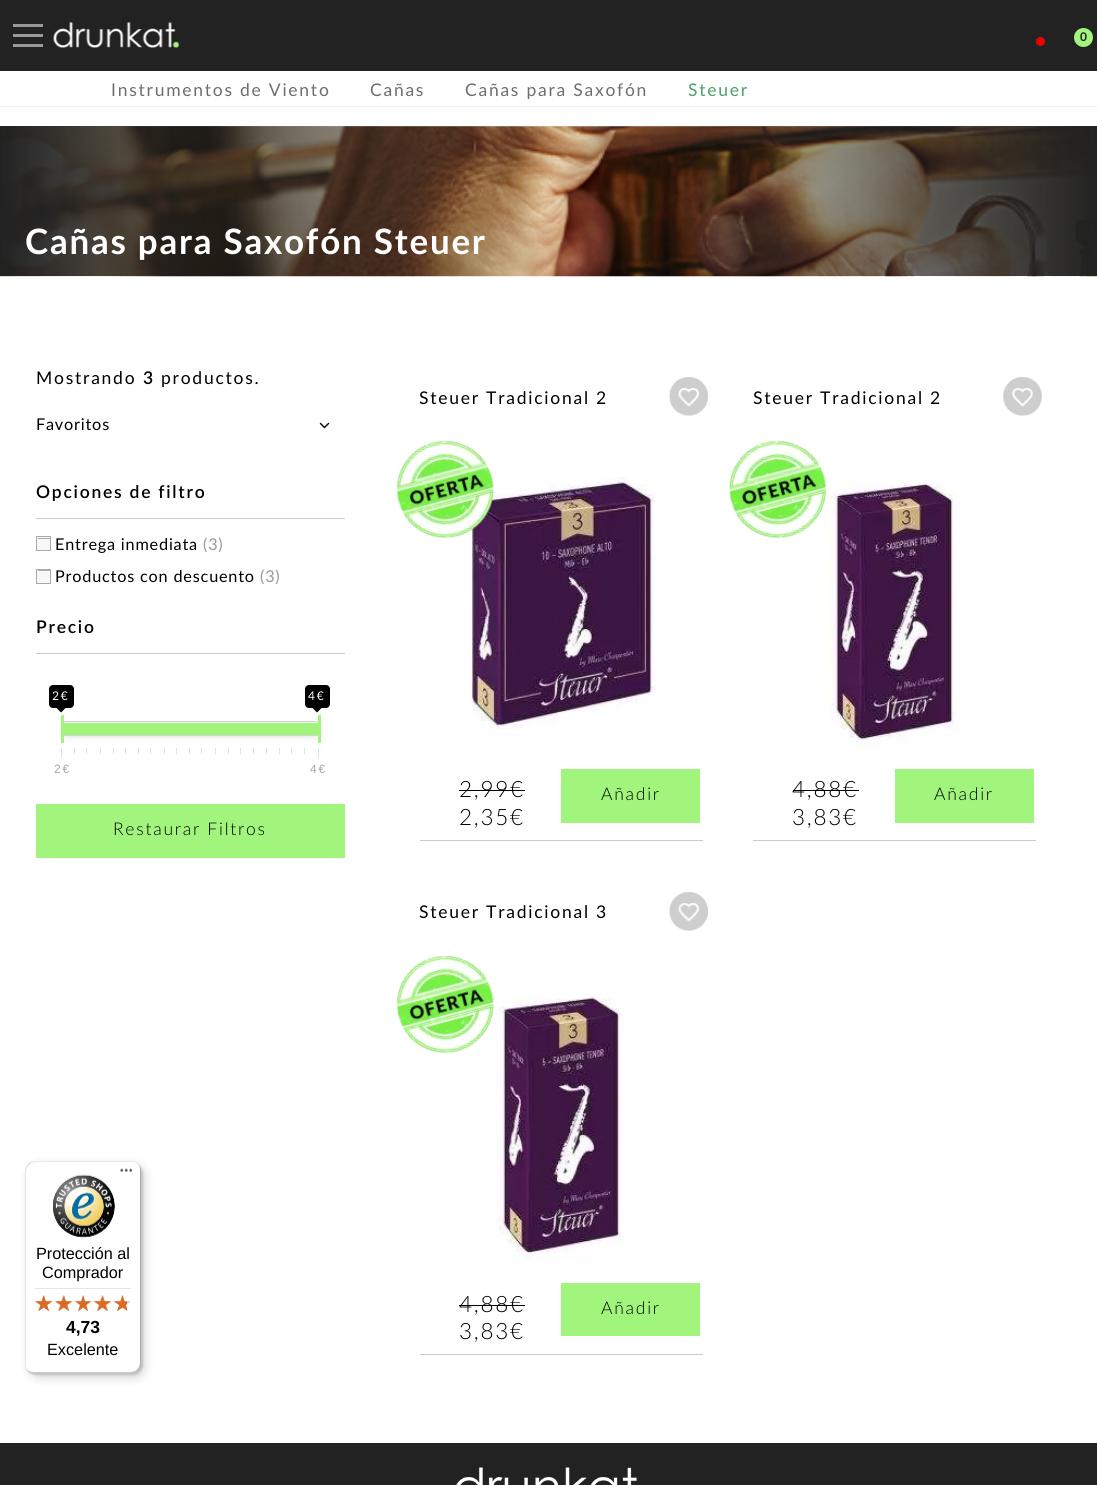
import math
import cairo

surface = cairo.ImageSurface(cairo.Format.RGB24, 1097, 1485)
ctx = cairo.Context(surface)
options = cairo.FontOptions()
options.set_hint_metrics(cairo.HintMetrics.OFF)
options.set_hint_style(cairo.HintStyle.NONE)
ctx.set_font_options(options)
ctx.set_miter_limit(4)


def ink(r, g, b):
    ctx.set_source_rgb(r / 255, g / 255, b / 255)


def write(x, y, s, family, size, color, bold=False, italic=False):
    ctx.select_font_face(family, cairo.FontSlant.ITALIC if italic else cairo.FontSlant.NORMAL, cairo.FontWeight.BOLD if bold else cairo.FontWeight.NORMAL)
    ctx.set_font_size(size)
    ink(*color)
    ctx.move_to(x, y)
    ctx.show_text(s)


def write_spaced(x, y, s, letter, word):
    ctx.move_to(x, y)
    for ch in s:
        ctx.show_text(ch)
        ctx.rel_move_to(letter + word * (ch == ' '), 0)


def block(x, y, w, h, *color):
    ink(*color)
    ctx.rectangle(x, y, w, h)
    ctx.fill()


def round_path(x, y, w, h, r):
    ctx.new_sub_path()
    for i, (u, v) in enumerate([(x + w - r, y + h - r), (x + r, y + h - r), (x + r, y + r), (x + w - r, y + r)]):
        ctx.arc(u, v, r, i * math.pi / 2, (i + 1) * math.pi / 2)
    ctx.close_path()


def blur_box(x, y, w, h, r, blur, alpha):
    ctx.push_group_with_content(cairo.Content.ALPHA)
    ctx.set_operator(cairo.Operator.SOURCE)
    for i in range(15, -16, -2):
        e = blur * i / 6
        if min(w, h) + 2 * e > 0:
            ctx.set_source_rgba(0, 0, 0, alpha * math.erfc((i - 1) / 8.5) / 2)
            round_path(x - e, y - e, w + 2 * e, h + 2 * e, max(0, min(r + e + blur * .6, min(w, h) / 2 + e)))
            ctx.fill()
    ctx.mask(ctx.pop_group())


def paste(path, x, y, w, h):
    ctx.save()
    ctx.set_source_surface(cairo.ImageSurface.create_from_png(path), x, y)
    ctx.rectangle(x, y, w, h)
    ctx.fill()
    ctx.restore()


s1 = dict(family="Liberation Sans", size=16.25, color=(0, 0, 0))
s2 = dict(family="Liberation Sans", size=17.5, color=(0, 0, 0), bold=True)

ink(255, 255, 255)
ctx.paint()
block(0, 0, 1097, 71, 34, 34, 34)
block(13, 24, 30, 3, 153, 153, 153)
block(13, 34, 30, 3, 153, 153, 153)
block(13, 44, 30, 3, 153, 153, 153)
paste("pic1.png", 53, 22, 126, 26)
ink(238, 0, 0)
ctx.arc(1040.5, 41.5, 6, 0, 2 * math.pi)
ctx.fill_preserve()
ink(34, 34, 34)
ctx.set_line_width(3)
ctx.stroke()
ink(162, 245, 124)
ctx.arc(1083.5, 37.5, 11, 0, 2 * math.pi)
ctx.fill_preserve()
ink(34, 34, 34)
ctx.stroke()
ctx.select_font_face("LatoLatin", cairo.FontSlant.NORMAL, cairo.FontWeight.BOLD)
ctx.set_font_size(12)
write_spaced(1080, 41, "0", 1.75, 0)
block(0, 106, 1097, 1, 242, 242, 242)
ctx.select_font_face("LatoLatin")
ctx.set_font_size(17.5)
ink(110, 110, 110)
write_spaced(111, 96, "Instrumentos de Viento", 1.75, 0)
write_spaced(370, 96, "Cañas", 1.75, 0)
write_spaced(465, 96, "Cañas para Saxofón", 1.75, 0)
ink(76, 159, 107)
write_spaced(688, 96, "Steuer", 1.75, 0)
paste("pic2.png", 0, 126, 1097, 151)
gradient = cairo.LinearGradient(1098, 201, 0, 201)
gradient.add_color_stop_rgba(0, 0.133, 0.133, 0.133, 1)
gradient.add_color_stop_rgba(0.5, 0.133, 0.133, 0.133, 0)
gradient.add_color_stop_rgba(1, 0.133, 0.133, 0.133, 1)
ctx.set_source(gradient)
ctx.rectangle(0, 126, 1097, 150)
ctx.fill()
ctx.select_font_face("LatoLatin", cairo.FontSlant.NORMAL, cairo.FontWeight.BOLD)
ctx.set_font_size(35)
ink(255, 255, 255)
write_spaced(25, 254, "Cañas para Saxofón Steuer", 1.75, 0)
ctx.select_font_face("LatoLatin")
ctx.set_font_size(17.5)
ink(0, 0, 0)
write_spaced(36, 384, "Mostrando", 1.75, 0)
ctx.select_font_face("LatoLatin SemiBold")
write_spaced(143, 384, "3", 1.75, 0)
ctx.select_font_face("LatoLatin")
write_spaced(161, 384, "productos.", 1.75, 0)
ctx.new_path()
ctx.move_to(320.5, 423.5)
ctx.line_to(324.5, 427.5)
ctx.line_to(328.5, 423.5)
ctx.set_line_width(1.4)
ctx.set_line_cap(cairo.LineCap.ROUND)
ctx.set_line_join(cairo.LineJoin.ROUND)
ctx.stroke()
ctx.set_font_size(16.25)
write_spaced(36, 430, "Favoritos", 0.8, 0)
block(36, 518, 309, 1, 204, 204, 204)
ctx.select_font_face("LatoLatin SemiBold")
ctx.set_font_size(17.5)
ink(0, 0, 0)
write_spaced(36, 498, "Opciones de filtro", 1.75, 0)
block(37, 537, 13, 13, 248, 248, 248)
block(38, 538, 12, 1, 174, 174, 174)
ctx.rectangle(36.5, 536.5, 14, 14)
ink(170, 170, 170)
ctx.set_line_width(1)
ctx.set_line_cap(cairo.LineCap.BUTT)
ctx.set_line_join(cairo.LineJoin.MITER)
ctx.stroke()
ctx.select_font_face("LatoLatin")
ctx.set_font_size(16.25)
ink(0, 0, 0)
write_spaced(55, 550, "Entrega inmediata", 0.8, 0)
ink(153, 153, 153)
write_spaced(203, 550, "(3)", 0.8, 0)
block(37, 570, 13, 13, 248, 248, 248)
block(38, 570, 12, 1, 174, 174, 174)
ctx.rectangle(36.5, 569.5, 14, 14)
ink(170, 170, 170)
ctx.stroke()
ink(0, 0, 0)
write_spaced(55, 582, "Productos con descuento", 0.8, 0)
ink(153, 153, 153)
write_spaced(260, 582, "(3)", 0.8, 0)
block(36, 653, 309, 1, 204, 204, 204)
ctx.select_font_face("LatoLatin SemiBold")
ctx.set_font_size(17.5)
ink(0, 0, 0)
write_spaced(36, 633, "Precio", 1.75, 0)
ink(187, 187, 187)
blur_box(68, 731, 246, 3, 0, 4, 1)
block(64, 722, 254, 1, 250, 250, 250)
ctx.rectangle(61.5, 721.5, 258, 14)
ink(211, 211, 211)
ctx.stroke()
block(64, 723, 254, 12, 162, 245, 124)
ink(0, 0, 0)
round_path(49, 685, 25, 23, 4)
ctx.fill()
ctx.select_font_face("LatoLatin")
ctx.set_font_size(12)
ink(255, 255, 255)
write_spaced(52, 700, "2€", 1.75, 0)
ink(0, 0, 0)
ctx.new_path()
ctx.move_to(56, 707.5)
ctx.line_to(66, 707.5)
ctx.line_to(61, 712.5)
ctx.close_path()
ctx.fill()
block(61, 715, 3, 28, 162, 245, 124)
ink(0, 0, 0)
round_path(305, 685, 25, 23, 4)
ctx.fill()
ink(255, 255, 255)
write_spaced(308, 700, "4€", 1.75, 0)
ink(0, 0, 0)
ctx.new_path()
ctx.move_to(312, 707.5)
ctx.line_to(322, 707.5)
ctx.line_to(317, 712.5)
ctx.close_path()
ctx.fill()
block(318, 715, 3, 28, 162, 245, 124)
block(61, 748, 1, 10, 225, 228, 233)
block(74, 748, 1, 6, 225, 228, 233)
block(86, 748, 1, 6, 225, 228, 233)
block(100, 748, 1, 6, 225, 228, 233)
block(113, 748, 1, 6, 225, 228, 233)
block(125, 748, 1, 6, 225, 228, 233)
block(138, 748, 1, 6, 225, 228, 233)
block(150, 748, 1, 6, 225, 228, 233)
block(164, 748, 1, 6, 225, 228, 233)
block(176, 748, 1, 6, 225, 228, 233)
block(189, 748, 1, 6, 225, 228, 233)
block(201, 748, 1, 6, 225, 228, 233)
block(215, 748, 1, 6, 225, 228, 233)
block(228, 748, 1, 6, 225, 228, 233)
block(240, 748, 1, 6, 225, 228, 233)
block(253, 748, 1, 6, 225, 228, 233)
block(266, 748, 1, 6, 225, 228, 233)
block(279, 748, 1, 6, 225, 228, 233)
block(291, 748, 1, 6, 225, 228, 233)
block(304, 748, 1, 6, 225, 228, 233)
block(318, 748, 1, 10, 225, 228, 233)
ctx.select_font_face("Liberation Sans")
ink(167, 167, 168)
write_spaced(54, 773, "2€", 1.75, 0)
write_spaced(310, 773, "4€", 1.75, 0)
block(36, 804, 309, 54, 162, 245, 124)
ctx.select_font_face("LatoLatin Light")
ctx.set_font_size(17.5)
ink(0, 0, 0)
write_spaced(113, 835, "Restaurar Filtros", 1.75, 0)
ctx.select_font_face("LatoLatin")
write_spaced(419, 404, "Steuer Tradicional 2", 1.75, 0)
paste("pic3.png", 669, 377, 39, 39)
paste("pic5.png", 471, 477, 184, 253)
paste("pic4.png", 396, 440, 98, 99)
block(420, 840, 283, 1, 204, 204, 204)
ctx.select_font_face("LatoLatin Light")
ctx.set_font_size(22.5)
ink(0, 0, 0)
write_spaced(459, 797, "2,99€", 1.75, 0)
block(459, 790, 66, 1, 0, 0, 0)
write_spaced(459, 825, "2,35€", 1.75, 0)
block(561, 769, 139, 54, 162, 245, 124)
ctx.set_font_size(17.5)
ink(0, 0, 0)
write_spaced(601, 800, "Añadir", 1.75, 0)
ctx.select_font_face("LatoLatin")
write_spaced(753, 404, "Steuer Tradicional 2", 1.75, 0)
paste("pic6.png", 1003, 377, 39, 39)
paste("pic8.png", 823, 483, 139, 264)
paste("pic7.png", 729, 440, 98, 99)
block(753, 840, 283, 1, 204, 204, 204)
ctx.select_font_face("LatoLatin Light")
ctx.set_font_size(22.5)
ink(0, 0, 0)
write_spaced(792, 797, "4,88€", 1.75, 0)
block(793, 790, 66, 1, 0, 0, 0)
write_spaced(792, 825, "3,83€", 1.75, 0)
block(895, 769, 139, 54, 162, 245, 124)
ctx.set_font_size(17.5)
ink(0, 0, 0)
write_spaced(934, 800, "Añadir", 1.75, 0)
ctx.select_font_face("LatoLatin")
write_spaced(419, 918, "Steuer Tradicional 3", 1.75, 0)
paste("pic3.png", 669, 892, 39, 39)
paste("pic9.png", 396, 955, 98, 99)
paste("pic10.png", 496, 994, 128, 267)
block(420, 1354, 283, 1, 204, 204, 204)
ctx.select_font_face("LatoLatin Light")
ctx.set_font_size(22.5)
ink(0, 0, 0)
write_spaced(459, 1312, "4,88€", 1.75, 0)
block(459, 1305, 66, 1, 0, 0, 0)
write_spaced(459, 1339, "3,83€", 1.75, 0)
block(561, 1283, 139, 53, 162, 245, 124)
ctx.set_font_size(17.5)
ink(0, 0, 0)
write_spaced(601, 1314, "Añadir", 1.75, 0)
block(0, 1443, 1097, 42, 34, 34, 34)
paste("pic11.png", 456, 1467, 181, 18)
ink(0, 0, 0)
blur_box(29, 1165, 116, 213, 10, 5, 0.15)
blur_box(26, 1163, 117, 212, 10, 1, 0.15)
ink(255, 255, 255)
round_path(25, 1161, 116, 213, 10)
ctx.fill()
ctx.set_source_rgba(0, 0, 0, 0.1)
ctx.new_path()
ctx.move_to(36, 1162)
ctx.line_to(132, 1162)
ctx.curve_to(135, 1162, 137, 1163, 139, 1164)
ctx.curve_to(137, 1162, 134, 1161, 131, 1161)
ctx.line_to(35, 1161)
ctx.curve_to(29, 1161, 25, 1165, 25, 1171)
ctx.line_to(25, 1364)
ctx.curve_to(25, 1367, 26, 1370, 28, 1372)
ctx.curve_to(27, 1370, 26, 1368, 26, 1365)
ctx.line_to(26, 1172)
ctx.curve_to(26, 1167, 31, 1162, 36, 1162)
ctx.close_path()
ctx.fill()
ctx.set_source_rgba(0, 0, 0, 0.2)
ctx.new_path()
ctx.move_to(26, 1368)
ctx.curve_to(28, 1372, 31, 1374, 35, 1374)
ctx.line_to(131, 1374)
ctx.curve_to(137, 1374, 141, 1370, 141, 1364)
ctx.line_to(141, 1171)
ctx.curve_to(141, 1169, 140, 1166, 139, 1165)
ctx.curve_to(140, 1166, 140, 1168, 140, 1170)
ctx.line_to(140, 1362)
ctx.curve_to(140, 1368, 136, 1372, 130, 1372)
ctx.line_to(34, 1372)
ctx.curve_to(31, 1372, 28, 1371, 26, 1368)
ctx.close_path()
ctx.fill()
ctx.set_source_rgba(0.196, 0.196, 0.196, 0.2)
ctx.new_path()
ctx.move_to(27, 1370)
ctx.curve_to(29, 1373, 32, 1374, 35, 1374)
ctx.line_to(131, 1374)
ctx.curve_to(137, 1374, 141, 1370, 141, 1364)
ctx.line_to(141, 1171)
ctx.curve_to(141, 1168, 140, 1165, 137, 1163)
ctx.curve_to(139, 1165, 140, 1168, 140, 1170)
ctx.line_to(140, 1363)
ctx.curve_to(140, 1369, 136, 1373, 130, 1373)
ctx.line_to(34, 1373)
ctx.curve_to(32, 1373, 29, 1372, 27, 1370)
ctx.close_path()
ctx.fill()
paste("pic12.png", 120, 1168, 13, 4)
ctx.set_source_rgba(1, 1, 1, 0.3)
ctx.set_fill_rule(cairo.FillRule.EVEN_ODD)
ctx.new_path()
ctx.move_to(27, 1370)
ctx.curve_to(29, 1373, 32, 1374, 35, 1374)
ctx.line_to(131, 1374)
ctx.curve_to(137, 1374, 141, 1370, 141, 1364)
ctx.line_to(141, 1363)
ctx.curve_to(141, 1369, 136, 1373, 131, 1373)
ctx.line_to(34, 1373)
ctx.curve_to(32, 1373, 29, 1372, 27, 1370)
ctx.close_path()
ctx.move_to(139, 1165)
ctx.curve_to(137, 1162, 134, 1161, 131, 1161)
ctx.curve_to(134, 1161, 137, 1162, 139, 1165)
ctx.close_path()
ctx.fill()
paste("pic13.png", 53, 1174, 62, 64)
write(36, 1259, "Protección al", **s1)
write(42, 1278, "Comprador", **s1)
block(35, 1288, 96, 1, 229, 229, 229)
paste("pic14.png", 35, 1295, 17, 16)
paste("pic15.png", 55, 1295, 17, 16)
paste("pic16.png", 75, 1295, 16, 16)
paste("pic17.png", 93, 1295, 18, 16)
paste("pic18.png", 114, 1295, 17, 16)
paste("pic19.png", 35, 1295, 17, 16)
paste("pic20.png", 54, 1295, 19, 16)
paste("pic21.png", 75, 1295, 16, 16)
paste("pic22.png", 93, 1295, 18, 16)
paste("pic23.png", 114, 1295, 13, 16)
write(66, 1333, "4,73", **s2)
write(47, 1355, "Excelente", **s1)
surface.write_to_png("screenshot.png")
